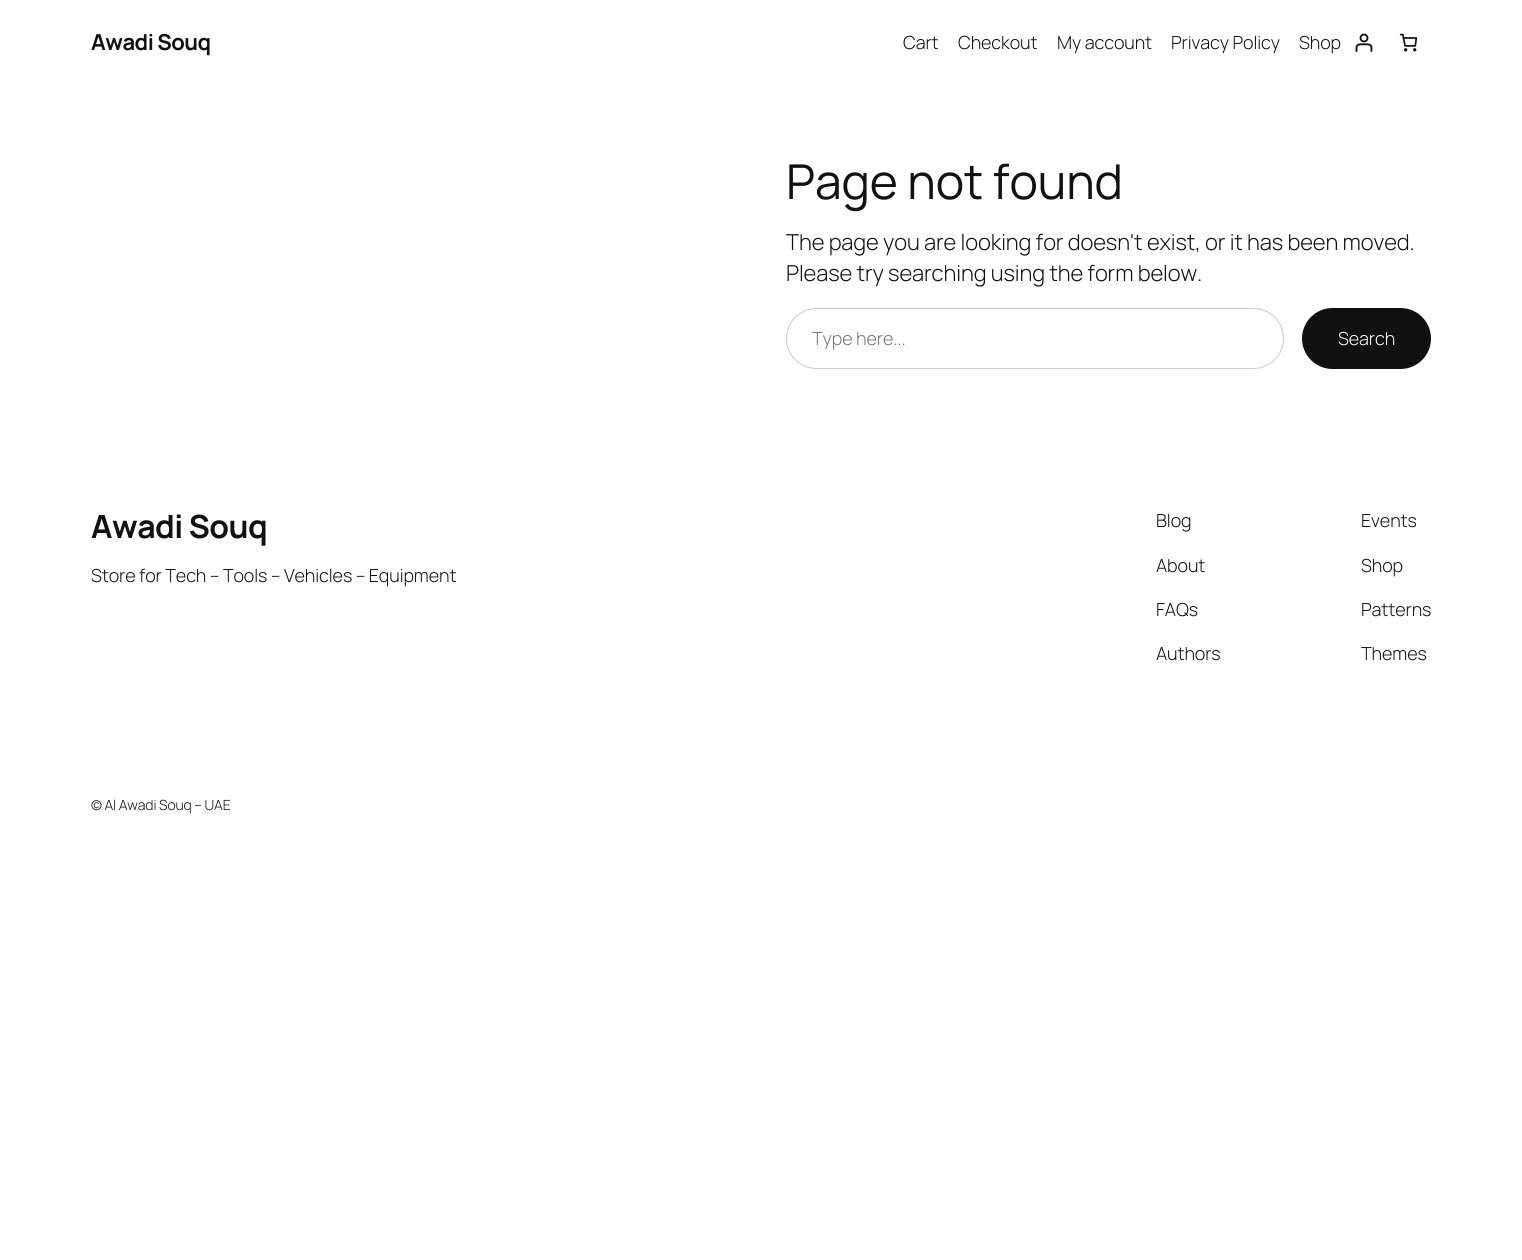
import math
import cairo

surface = cairo.ImageSurface(cairo.Format.RGB24, 1522, 1260)
ctx = cairo.Context(surface)
options = cairo.FontOptions()
options.set_hint_metrics(cairo.HintMetrics.OFF)
options.set_hint_style(cairo.HintStyle.NONE)
ctx.set_font_options(options)
ctx.set_miter_limit(4)


def ink(r, g, b):
    ctx.set_source_rgb(r / 255, g / 255, b / 255)


def write_spaced(x, y, s, letter, word):
    ctx.move_to(x, y)
    for ch in s:
        ctx.show_text(ch)
        ctx.rel_move_to(letter + word * (ch == ' '), 0)


def round_path(x, y, w, h, r):
    ctx.new_sub_path()
    for i, (u, v) in enumerate([(x + w - r, y + h - r), (x + r, y + h - r), (x + r, y + r), (x + w - r, y + r)]):
        ctx.arc(u, v, r, i * math.pi / 2, (i + 1) * math.pi / 2)
    ctx.close_path()


def paste(path, x, y, w, h):
    ctx.save()
    ctx.set_source_surface(cairo.ImageSurface.create_from_png(path), x, y)
    ctx.rectangle(x, y, w, h)
    ctx.fill()
    ctx.restore()


ink(255, 255, 255)
ctx.paint()
ctx.select_font_face("Manrope", cairo.FontSlant.NORMAL, cairo.FontWeight.BOLD)
ctx.set_font_size(22)
ink(17, 17, 17)
write_spaced(91, 50, "Awadi Souq", -0.5, 0)
ctx.select_font_face("Manrope Light")
ctx.set_font_size(18)
write_spaced(903, 49, "Cart", -0.1, 0)
write_spaced(958, 49, "Checkout", -0.1, 0)
write_spaced(1057, 49, "My account", -0.1, 0)
write_spaced(1171, 49, "Privacy Policy", -0.1, 0)
write_spaced(1299, 49, "Shop", -0.1, 0)
paste("pic1.png", 1355, 33, 18, 19)
paste("pic2.png", 1399, 33, 19, 19)
ctx.select_font_face("Manrope")
ctx.set_font_size(48)
write_spaced(786, 199, "Page not found", -0.1, 0)
ctx.select_font_face("Manrope Light")
ctx.set_font_size(22)
write_spaced(786, 250, "The page you are looking for doesn't exist, or it has been moved.", -0.1, 0)
write_spaced(786, 281, "Please try searching using the form below.", -0.1, 0)
round_path(786.5, 308.5, 497, 60, 30)
ink(204, 204, 204)
ctx.set_line_width(1)
ctx.stroke()
ctx.set_font_size(18)
ink(117, 117, 117)
write_spaced(812, 345, "Type here...", -0.1, 0)
ink(17, 17, 17)
round_path(1302, 308, 129, 61, 30.5)
ctx.fill()
ink(255, 255, 255)
write_spaced(1338, 345, "Search", -0.1, 0)
ctx.select_font_face("Manrope", cairo.FontSlant.NORMAL, cairo.FontWeight.BOLD)
ctx.set_font_size(32)
ink(17, 17, 17)
write_spaced(91, 538, "Awadi Souq", -0.5, 0)
ctx.select_font_face("Manrope Light")
ctx.set_font_size(18)
write_spaced(91, 582, "Store for Tech – Tools – Vehicles – Equipment", -0.1, 0)
write_spaced(1156, 527, "Blog", -0.1, 0)
write_spaced(1156, 572, "About", -0.1, 0)
write_spaced(1156, 616, "FAQs", -0.1, 0)
write_spaced(1156, 660, "Authors", -0.1, 0)
write_spaced(1361, 527, "Events", -0.1, 0)
write_spaced(1361, 572, "Shop", -0.1, 0)
write_spaced(1361, 616, "Patterns", -0.1, 0)
write_spaced(1361, 660, "Themes", -0.1, 0)
ctx.set_font_size(14)
write_spaced(91, 810, "© Al Awadi Souq – UAE", -0.1, 0)
surface.write_to_png("screenshot.png")
